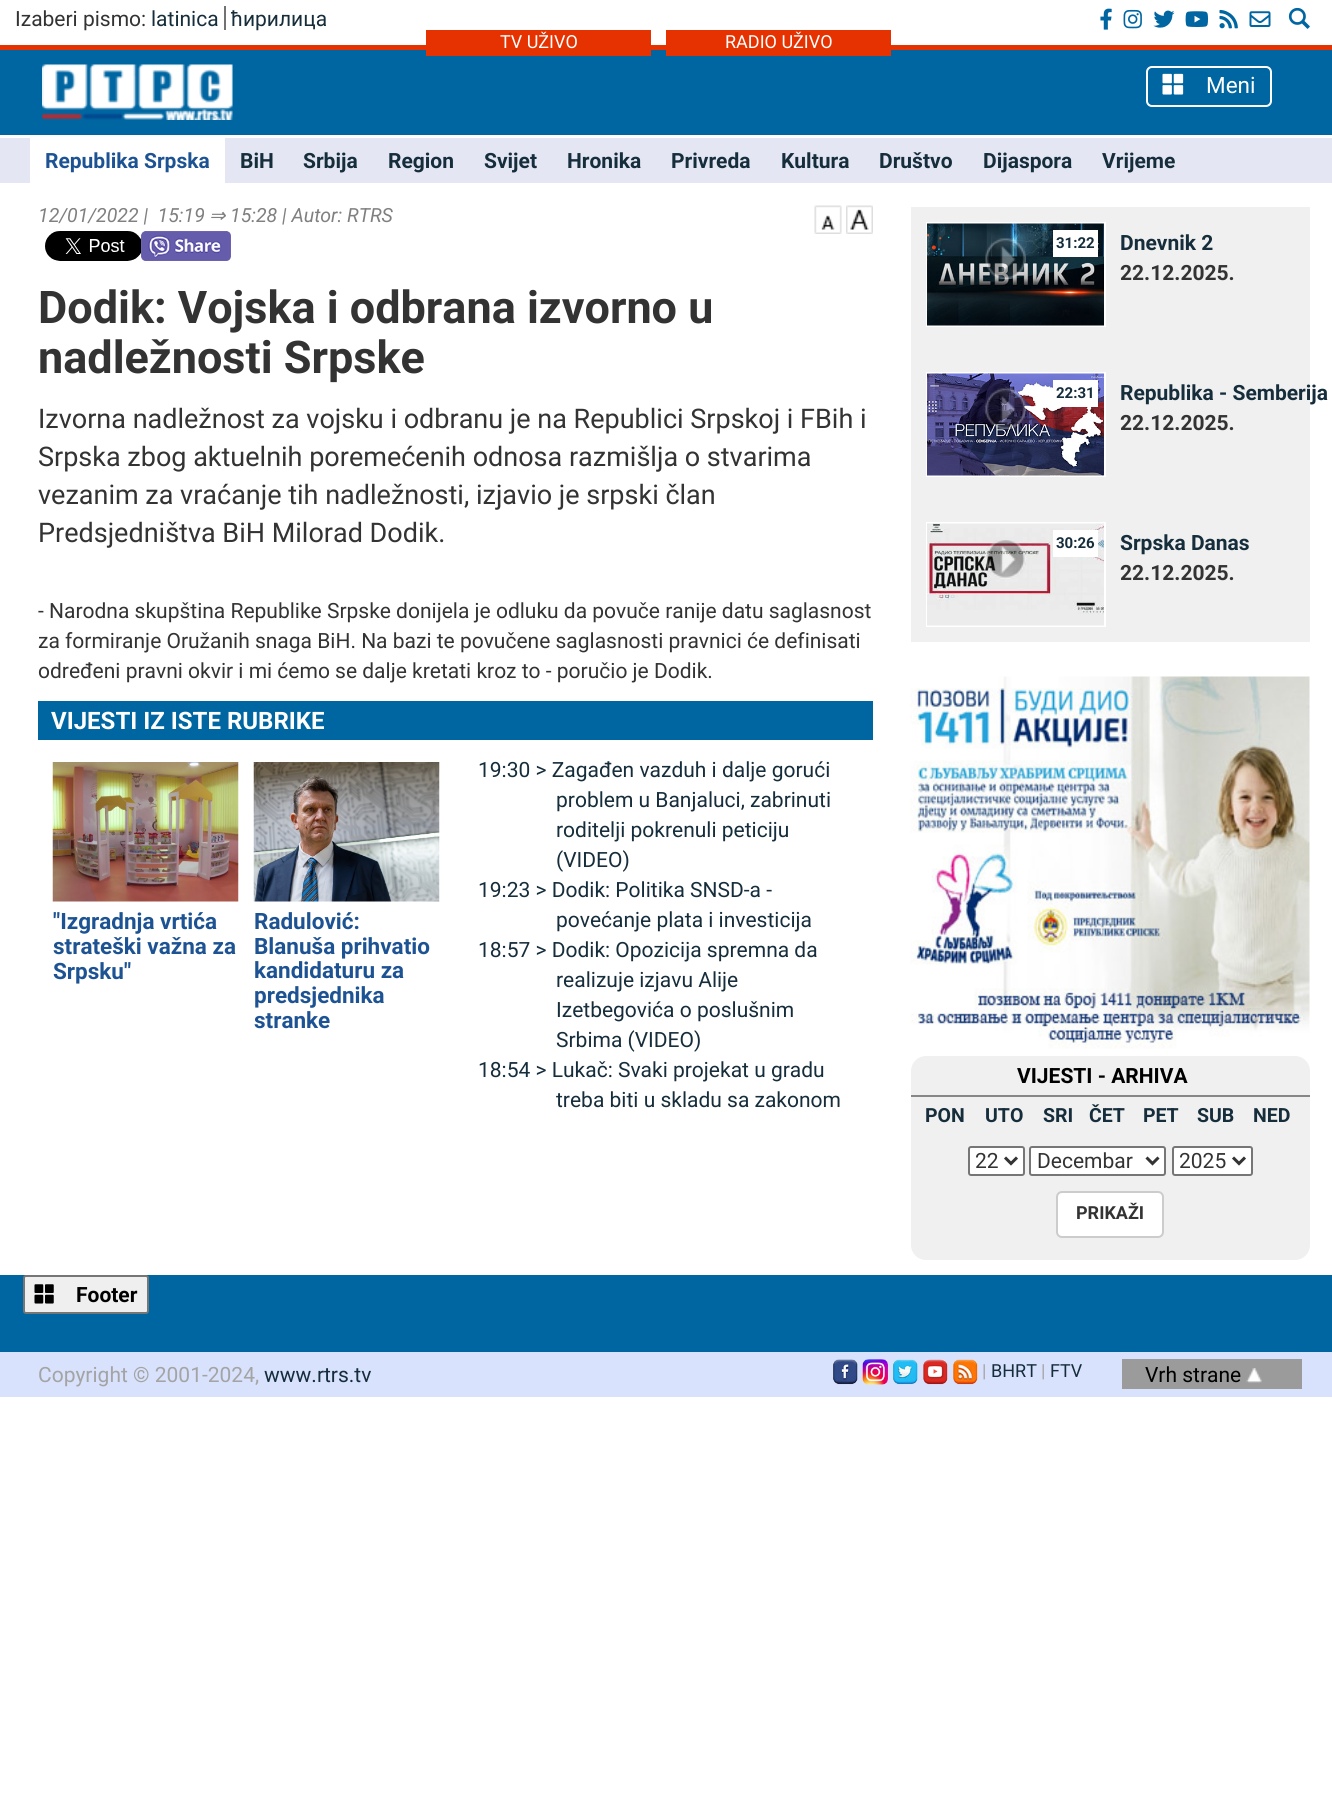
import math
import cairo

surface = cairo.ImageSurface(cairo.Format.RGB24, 1332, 1805)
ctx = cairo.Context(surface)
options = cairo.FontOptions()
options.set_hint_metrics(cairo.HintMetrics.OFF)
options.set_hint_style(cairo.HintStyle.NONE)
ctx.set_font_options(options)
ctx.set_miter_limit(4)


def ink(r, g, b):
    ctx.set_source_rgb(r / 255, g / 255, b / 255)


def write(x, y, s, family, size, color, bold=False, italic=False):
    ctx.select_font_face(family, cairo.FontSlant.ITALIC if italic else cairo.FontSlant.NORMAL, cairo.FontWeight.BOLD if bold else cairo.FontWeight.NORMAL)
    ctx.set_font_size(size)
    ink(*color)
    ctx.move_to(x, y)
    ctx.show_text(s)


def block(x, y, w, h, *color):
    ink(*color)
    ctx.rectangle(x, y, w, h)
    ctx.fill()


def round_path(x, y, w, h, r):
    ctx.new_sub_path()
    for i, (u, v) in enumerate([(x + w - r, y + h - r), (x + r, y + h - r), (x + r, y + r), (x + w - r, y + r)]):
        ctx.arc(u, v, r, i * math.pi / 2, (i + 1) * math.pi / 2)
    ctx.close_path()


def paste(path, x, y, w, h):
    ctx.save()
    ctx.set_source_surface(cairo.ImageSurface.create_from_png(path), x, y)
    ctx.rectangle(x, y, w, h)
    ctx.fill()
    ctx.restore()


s1 = dict(family="Roboto", size=21, color=(51, 51, 51))
s2 = dict(family="Roboto", size=21, color=(22, 45, 59))
s3 = dict(family="Roboto", size=18, color=(255, 255, 255))
s4 = dict(family="Roboto", size=22.5, color=(255, 255, 255))
s5 = dict(family="Roboto", size=21, color=(29, 83, 147), bold=True)
s6 = dict(family="Roboto", size=21, color=(22, 45, 59), bold=True)
s7 = dict(family="Roboto", size=19.5, color=(129, 128, 128), italic=True)
s8 = dict(family="DejaVu Sans", size=19.5, color=(129, 128, 128), italic=True)
s9 = dict(family="Roboto", size=45, color=(51, 51, 51), bold=True)
s10 = dict(family="Roboto", size=27, color=(51, 51, 51))
s11 = dict(family="Roboto", size=24, color=(255, 255, 255), bold=True)
s12 = dict(family="Roboto", size=22.5, color=(29, 83, 147), bold=True)
s13 = dict(family="Roboto", size=15, color=(22, 45, 59), bold=True)
s14 = dict(family="Roboto", size=21, color=(51, 51, 51), bold=True)
s15 = dict(family="Roboto", size=21, color=(0, 0, 0), bold=True)
s16 = dict(family="Roboto", size=19.5, color=(22, 45, 59), bold=True)
s17 = dict(family="Roboto", size=18, color=(51, 51, 51), bold=True)
s18 = dict(family="Roboto", size=21, color=(164, 164, 164))
s19 = dict(family="Roboto", size=18, color=(164, 164, 164))
s20 = dict(family="Roboto", size=18, color=(22, 45, 59))
s21 = dict(family="Roboto", size=21, color=(0, 0, 0))

ink(255, 255, 255)
ctx.paint()
block(0, 50, 1332, 85, 0, 102, 161)
write(15, 26, "Izaberi pismo:", **s1)
write(151, 26, "latinica", **s2)
block(224, 6, 2, 24, 114, 114, 114)
write(231, 26, "ћирилица", **s2)
paste("pic1.png", 1100, 8, 12, 22)
paste("pic2.png", 1123, 9, 19, 20)
paste("pic3.png", 1153, 10, 22, 18)
paste("pic4.png", 1185, 11, 23, 16)
paste("pic5.png", 1219, 9, 19, 20)
paste("pic6.png", 1249, 11, 22, 16)
paste("pic7.png", 1288, 7, 22, 22)
block(0, 45, 1332, 5, 230, 50, 0)
block(426, 30, 225, 26, 230, 50, 0)
write(500, 48, "TV UŽIVO", **s3)
block(666, 30, 225, 26, 230, 50, 0)
write(725, 48, "RADIO UŽIVO", **s3)
paste("pic8.png", 42, 64, 191, 56)
round_path(1147, 67, 124, 39, 5)
ctx.stroke()
paste("pic9.png", 1162, 73, 22, 22)
write(1206, 93, "Meni", **s4)
block(0, 138, 1332, 45, 228, 230, 243)
block(30, 138, 195, 45, 255, 255, 255)
write(45, 168, "Republika Srpska", **s5)
write(240, 168, "BiH", **s6)
write(303, 168, "Srbija", **s6)
write(388, 168, "Region", **s6)
write(484, 168, "Svijet", **s6)
write(567, 168, "Hronika", **s6)
write(671, 168, "Privreda", **s6)
write(781, 168, "Kultura", **s6)
write(879, 168, "Društvo", **s6)
write(983, 168, "Dijaspora", **s6)
write(1102, 168, "Vrijeme", **s6)
write(38, 222, "12/01/2022 |  15:19", **s7)
write(209, 222, "⇒", **s8)
write(230, 222, "15:28 | Autor: RTRS", **s7)
paste("pic10.png", 814, 205, 28, 29)
paste("pic11.png", 846, 205, 27, 29)
paste("pic13.png", 140, 231, 91, 30)
paste("pic12.png", 45, 231, 96, 30)
write(38, 323, "Dodik: Vojska i odbrana izvorno u", **s9)
write(38, 373, "nadležnosti Srpske", **s9)
write(38, 428, "Izvorna nadležnost za vojsku i odbranu je na Republici Srpskoj i FBih i", **s10)
write(38, 466, "Srpska zbog aktuelnih poremećenih odnosa razmišlja o stvarima", **s10)
write(38, 504, "vezanim za vraćanje tih nadležnosti, izjavio je srpski član", **s10)
write(38, 542, "Predsjedništva BiH Milorad Dodik.", **s10)
write(38, 618, "- Narodna skupština Republike Srpske donijela je odluku da povuče ranije datu saglasnost", **s1)
write(38, 648, "za formiranje Oružanih snaga BiH. Na bazi te povučene saglasnosti pravnici će definisati", **s1)
write(38, 678, "određeni pravni okvir i mi ćemo se dalje kretati kroz to - poručio je Dodik.", **s1)
block(38, 701, 835, 39, 0, 102, 161)
write(51, 729, "VIJESTI IZ ISTE RUBRIKE", **s11)
paste("pic14.png", 52, 762, 187, 140)
write(53, 929, "\"Izgradnja vrtića", **s12)
write(53, 954, "strateški važna za", **s12)
write(53, 979, "Srpsku\"", **s12)
paste("pic15.png", 253, 762, 187, 140)
write(254, 929, "Radulović:", **s12)
write(254, 954, "Blanuša prihvatio", **s12)
write(254, 978, "kandidaturu za", **s12)
write(254, 1003, "predsjednika", **s12)
write(254, 1028, "stranke", **s12)
write(478, 777, "19:30 > Zagađen vazduh i dalje gorući", **s2)
write(556, 807, "problem u Banjaluci, zabrinuti", **s2)
write(556, 837, "roditelji pokrenuli peticiju", **s2)
write(556, 867, "(VIDEO)", **s2)
write(478, 897, "19:23 > Dodik: Politika SNSD-a -", **s2)
write(556, 927, "povećanje plata i investicija", **s2)
write(478, 957, "18:57 > Dodik: Opozicija spremna da", **s2)
write(556, 987, "realizuje izjavu Alije", **s2)
write(556, 1017, "Izetbegovića o poslušnim", **s2)
write(556, 1047, "Srbima (VIDEO)", **s2)
write(478, 1077, "18:54 > Lukač: Svaki projekat u gradu", **s2)
write(556, 1107, "treba biti u skladu sa zakonom", **s2)
block(911, 207, 399, 435, 240, 240, 240)
ctx.rectangle(927, 223, 178, 103)
ink(255, 255, 255)
ctx.stroke()
paste("pic16.png", 927, 223, 177, 103)
paste("pic17.png", 985, 238, 41, 41)
block(1053, 230, 45, 27, 255, 255, 255)
write(1056, 248, "31:22", **s13)
write(1120, 250, "Dnevnik 2", **s6)
write(1120, 280, "22.12.2025.", **s14)
ctx.rectangle(927, 373, 178, 103)
ink(255, 255, 255)
ctx.stroke()
paste("pic18.png", 927, 373, 177, 103)
paste("pic19.png", 985, 388, 41, 41)
block(1053, 380, 45, 27, 255, 255, 255)
write(1056, 398, "22:31", **s13)
write(1120, 400, "Republika - Semberija", **s6)
write(1120, 430, "22.12.2025.", **s14)
ctx.rectangle(927, 523, 178, 103)
ink(255, 255, 255)
ctx.stroke()
paste("pic20.png", 927, 523, 177, 103)
paste("pic21.png", 985, 540, 41, 39)
block(1053, 530, 45, 27, 255, 255, 255)
write(1056, 548, "30:26", **s13)
write(1120, 550, "Srpska Danas", **s6)
write(1120, 580, "22.12.2025.", **s14)
paste("pic22.png", 910, 676, 400, 373)
ink(240, 240, 240)
round_path(911, 1056, 399, 204, 15)
ctx.fill()
block(911, 1095, 399, 2, 134, 135, 135)
write(1017, 1083, "VIЈESTI - ARHIVA", **s15)
write(925, 1122, "PON", **s16)
write(985, 1122, "UTO", **s16)
write(1043, 1122, "SRI", **s16)
write(1089, 1122, "ČET", **s16)
write(1143, 1122, "PET", **s16)
write(1197, 1122, "SUB", **s16)
write(1253, 1122, "NED", **s16)
ink(255, 255, 255)
round_path(969, 1147, 55, 28, 2)
ctx.fill_preserve()
ink(118, 118, 118)
ctx.stroke()
ctx.new_path()
ctx.move_to(1005, 1157.5)
ctx.line_to(1011, 1163.5)
ctx.line_to(1017, 1157.5)
ink(51, 51, 51)
ctx.set_line_width(3)
ctx.stroke()
write(975, 1168, "22", **s1)
ink(255, 255, 255)
round_path(1030, 1147, 135, 28, 2)
ctx.fill_preserve()
ink(118, 118, 118)
ctx.set_line_width(2)
ctx.stroke()
ctx.new_path()
ctx.move_to(1146.5, 1157.5)
ctx.line_to(1152.5, 1163.5)
ctx.line_to(1158.5, 1157.5)
ink(51, 51, 51)
ctx.set_line_width(3)
ctx.stroke()
write(1037, 1168, "Decembar", **s1)
ink(255, 255, 255)
round_path(1173, 1147, 79, 28, 2)
ctx.fill_preserve()
ink(118, 118, 118)
ctx.set_line_width(2)
ctx.stroke()
ctx.new_path()
ctx.move_to(1233, 1157.5)
ctx.line_to(1239, 1163.5)
ctx.line_to(1245, 1157.5)
ink(51, 51, 51)
ctx.set_line_width(3)
ctx.stroke()
write(1179, 1168, "2025", **s1)
ink(255, 255, 255)
round_path(1057, 1192, 106, 45, 5)
ctx.fill_preserve()
ink(204, 204, 204)
ctx.set_line_width(2)
ctx.stroke()
write(1076, 1219, "PRIKAŽI", **s17)
block(0, 1275, 1332, 77, 0, 102, 161)
ink(239, 239, 239)
round_path(24, 1276, 124, 37, 2)
ctx.fill_preserve()
ink(118, 118, 118)
ctx.stroke()
paste("pic23.png", 34, 1284, 20, 20)
write(76, 1302, "Footer", **s15)
block(0, 1352, 1332, 45, 216, 226, 253)
write(38, 1382, "Copyright © 2001-2024,", **s18)
write(264, 1382, "www.rtrs.tv", **s2)
paste("pic24.png", 832, 1359, 26, 26)
paste("pic25.png", 862, 1359, 26, 26)
paste("pic26.png", 893, 1359, 25, 26)
paste("pic27.png", 923, 1359, 25, 26)
paste("pic28.png", 953, 1359, 25, 26)
write(982, 1377, "|", **s19)
write(991, 1377, "BHRT", **s20)
write(1041, 1377, "|", **s19)
write(1050, 1377, "FTV", **s20)
block(1122, 1359, 180, 30, 156, 155, 155)
write(1145, 1382, "Vrh strane", **s21)
paste("pic29.png", 1246, 1368, 16, 15)
surface.write_to_png("screenshot.png")
